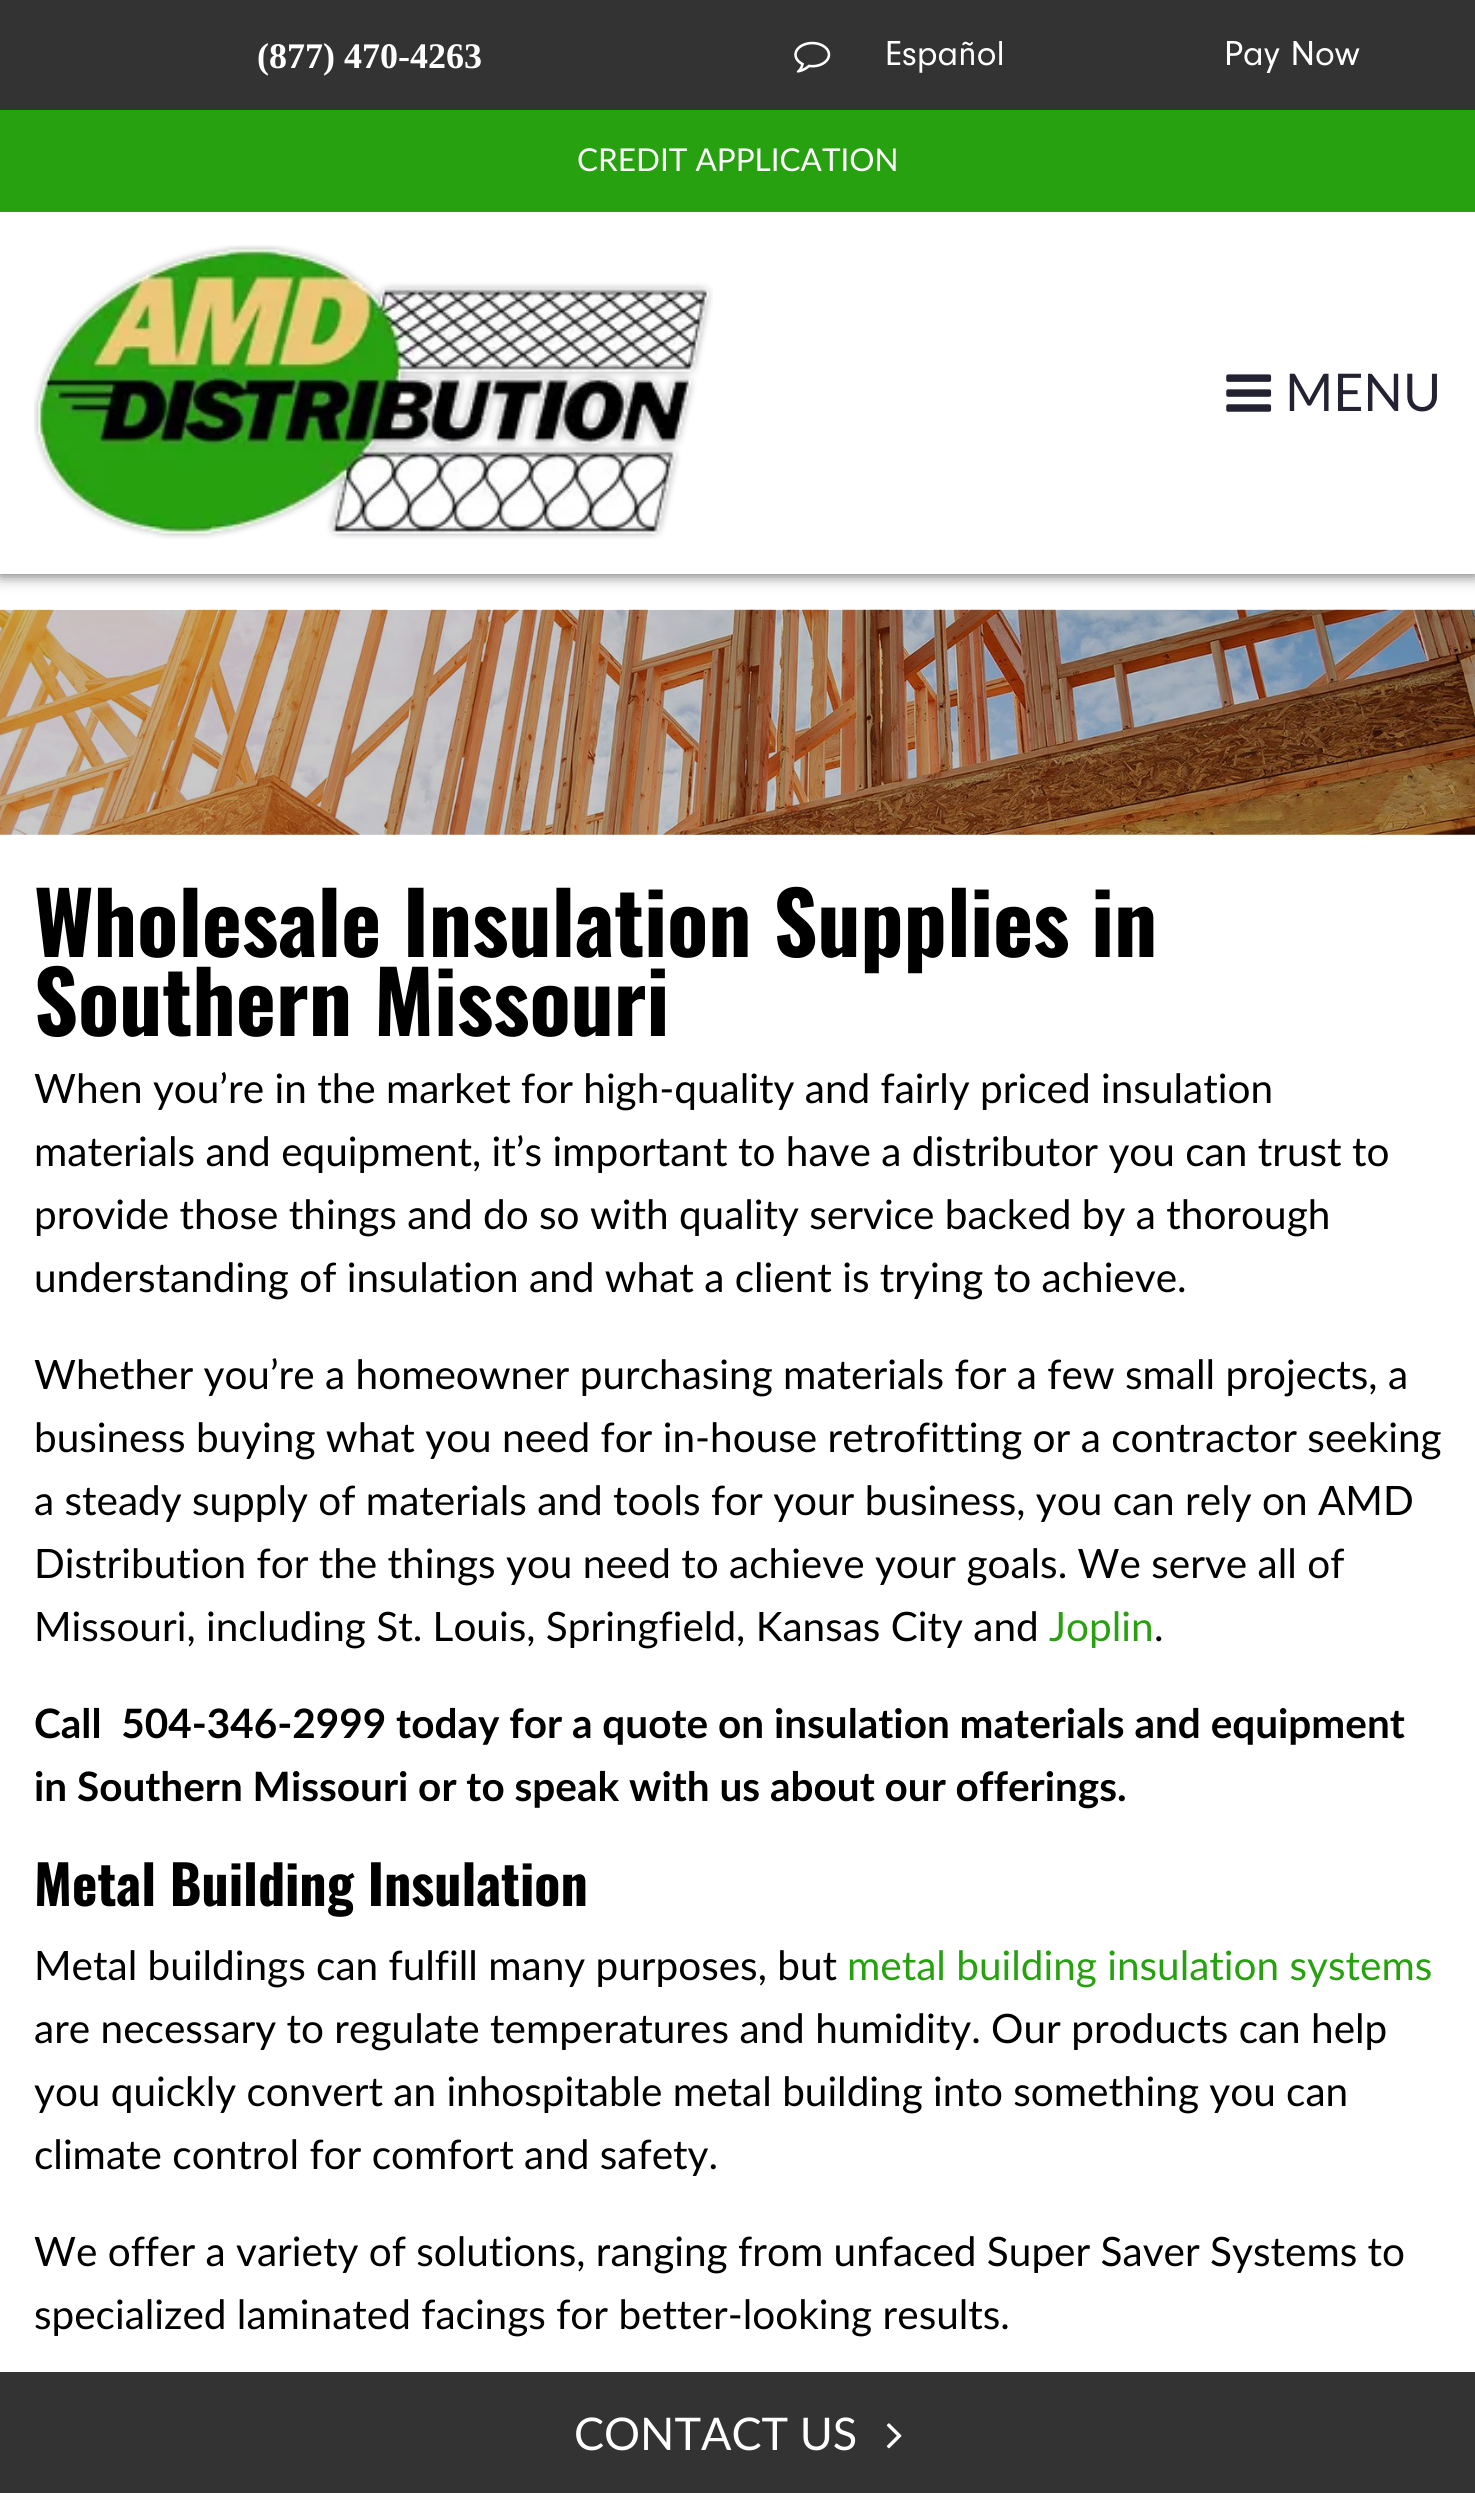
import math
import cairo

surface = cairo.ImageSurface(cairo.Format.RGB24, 1475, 2493)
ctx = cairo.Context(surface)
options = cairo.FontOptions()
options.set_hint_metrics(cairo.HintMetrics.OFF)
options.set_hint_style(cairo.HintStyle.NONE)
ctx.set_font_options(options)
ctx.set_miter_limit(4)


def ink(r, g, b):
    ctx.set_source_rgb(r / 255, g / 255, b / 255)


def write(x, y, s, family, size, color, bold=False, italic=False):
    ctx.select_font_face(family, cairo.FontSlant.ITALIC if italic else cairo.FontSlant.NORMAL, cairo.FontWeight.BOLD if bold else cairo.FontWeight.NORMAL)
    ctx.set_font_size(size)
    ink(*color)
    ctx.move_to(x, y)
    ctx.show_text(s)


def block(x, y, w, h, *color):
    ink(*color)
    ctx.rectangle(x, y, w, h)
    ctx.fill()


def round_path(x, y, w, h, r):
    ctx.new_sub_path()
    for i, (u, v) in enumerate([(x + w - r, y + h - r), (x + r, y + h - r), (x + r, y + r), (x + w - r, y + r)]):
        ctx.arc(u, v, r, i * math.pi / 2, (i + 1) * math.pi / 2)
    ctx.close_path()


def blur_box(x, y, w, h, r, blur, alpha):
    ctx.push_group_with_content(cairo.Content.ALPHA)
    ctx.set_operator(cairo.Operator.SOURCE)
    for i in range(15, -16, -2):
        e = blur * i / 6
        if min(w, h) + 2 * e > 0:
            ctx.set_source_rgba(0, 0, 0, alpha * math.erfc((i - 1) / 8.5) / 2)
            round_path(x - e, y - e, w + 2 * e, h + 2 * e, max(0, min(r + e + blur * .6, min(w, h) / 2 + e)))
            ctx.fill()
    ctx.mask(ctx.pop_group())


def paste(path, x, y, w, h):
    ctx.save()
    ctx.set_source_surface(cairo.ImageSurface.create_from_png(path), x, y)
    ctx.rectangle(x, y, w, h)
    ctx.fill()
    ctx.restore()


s1 = dict(family="Liberation Serif", size=36, color=(255, 255, 255), bold=True)
s2 = dict(family="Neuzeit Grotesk", size=36, color=(255, 255, 255))
s3 = dict(family="Lato", size=31.5, color=(255, 255, 255))
s4 = dict(family="Lato", size=52, color=(34, 34, 50))
s5 = dict(family="Oswald", size=85.5, color=(0, 0, 0), bold=True)
s6 = dict(family="Lato", size=40.5, color=(0, 0, 0))
s7 = dict(family="Lato", size=40.5, color=(39, 161, 16))
s8 = dict(family="Lato", size=40.5, color=(0, 0, 0), bold=True)
s9 = dict(family="Oswald", size=54, color=(0, 0, 0), bold=True)
s10 = dict(family="Lato", size=45, color=(255, 255, 255))

ink(255, 255, 255)
ctx.paint()
ink(0, 0, 0)
blur_box(0, 0, 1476, 574, 0, 8, 0.7)
block(0, 212, 1475, 362, 255, 255, 255)
block(0, 0, 1475, 110, 51, 51, 51)
write(257, 68, "(877) 470-4263", **s1)
paste("pic1.png", 794, 41, 37, 32)
write(885, 65, "Español", **s2)
write(1224, 65, "Pay Now", **s2)
block(0, 110, 1475, 102, 39, 161, 16)
write(577, 171, "CREDIT APPLICATION", **s3)
paste("pic2.png", 34, 245, 679, 294)
paste("pic3.png", 1226, 374, 46, 38)
write(1285, 411, "MENU", **s4)
paste("pic4.png", 0, 609, 1475, 226)
write(34, 957, "Wholesale Insulation Supplies in", **s5)
write(34, 1036, "Southern Missouri", **s5)
write(34, 1103, "When you’re in the market for high-quality and fairly priced insulation", **s6)
write(34, 1166, "materials and equipment, it’s important to have a distributor you can trust to", **s6)
write(34, 1229, "provide those things and do so with quality service backed by a thorough", **s6)
write(34, 1292, "understanding of insulation and what a client is trying to achieve.", **s6)
write(34, 1389, "Whether you’re a homeowner purchasing materials for a few small projects, a", **s6)
write(34, 1452, "business buying what you need for in-house retrofitting or a contractor seeking", **s6)
write(34, 1515, "a steady supply of materials and tools for your business, you can rely on AMD", **s6)
write(34, 1578, "Distribution for the things you need to achieve your goals. We serve all of", **s6)
write(34, 1641, "Missouri, including St. Louis, Springfield, Kansas City and", **s6)
write(1049, 1641, "Joplin", **s7)
write(1154, 1641, ".", **s6)
write(34, 1738, "Call  504-346-2999 today for a quote on insulation materials and equipment", **s8)
write(34, 1801, "in Southern Missouri or to speak with us about our offerings.", **s8)
write(34, 1906, "Metal Building Insulation", **s9)
write(34, 1980, "Metal buildings can fulfill many purposes, but", **s6)
write(847, 1980, "metal building insulation systems", **s7)
write(34, 2043, "are necessary to regulate temperatures and humidity. Our products can help", **s6)
write(34, 2106, "you quickly convert an inhospitable metal building into something you can", **s6)
write(34, 2169, "climate control for comfort and safety.", **s6)
write(34, 2266, "We offer a variety of solutions, ranging from unfaced Super Saver Systems to", **s6)
write(34, 2329, "specialized laminated facings for better-looking results.", **s6)
block(0, 2372, 1475, 121, 51, 51, 51)
write(574, 2450, "CONTACT US", **s10)
paste("pic5.png", 886, 2423, 16, 26)
surface.write_to_png("screenshot.png")
